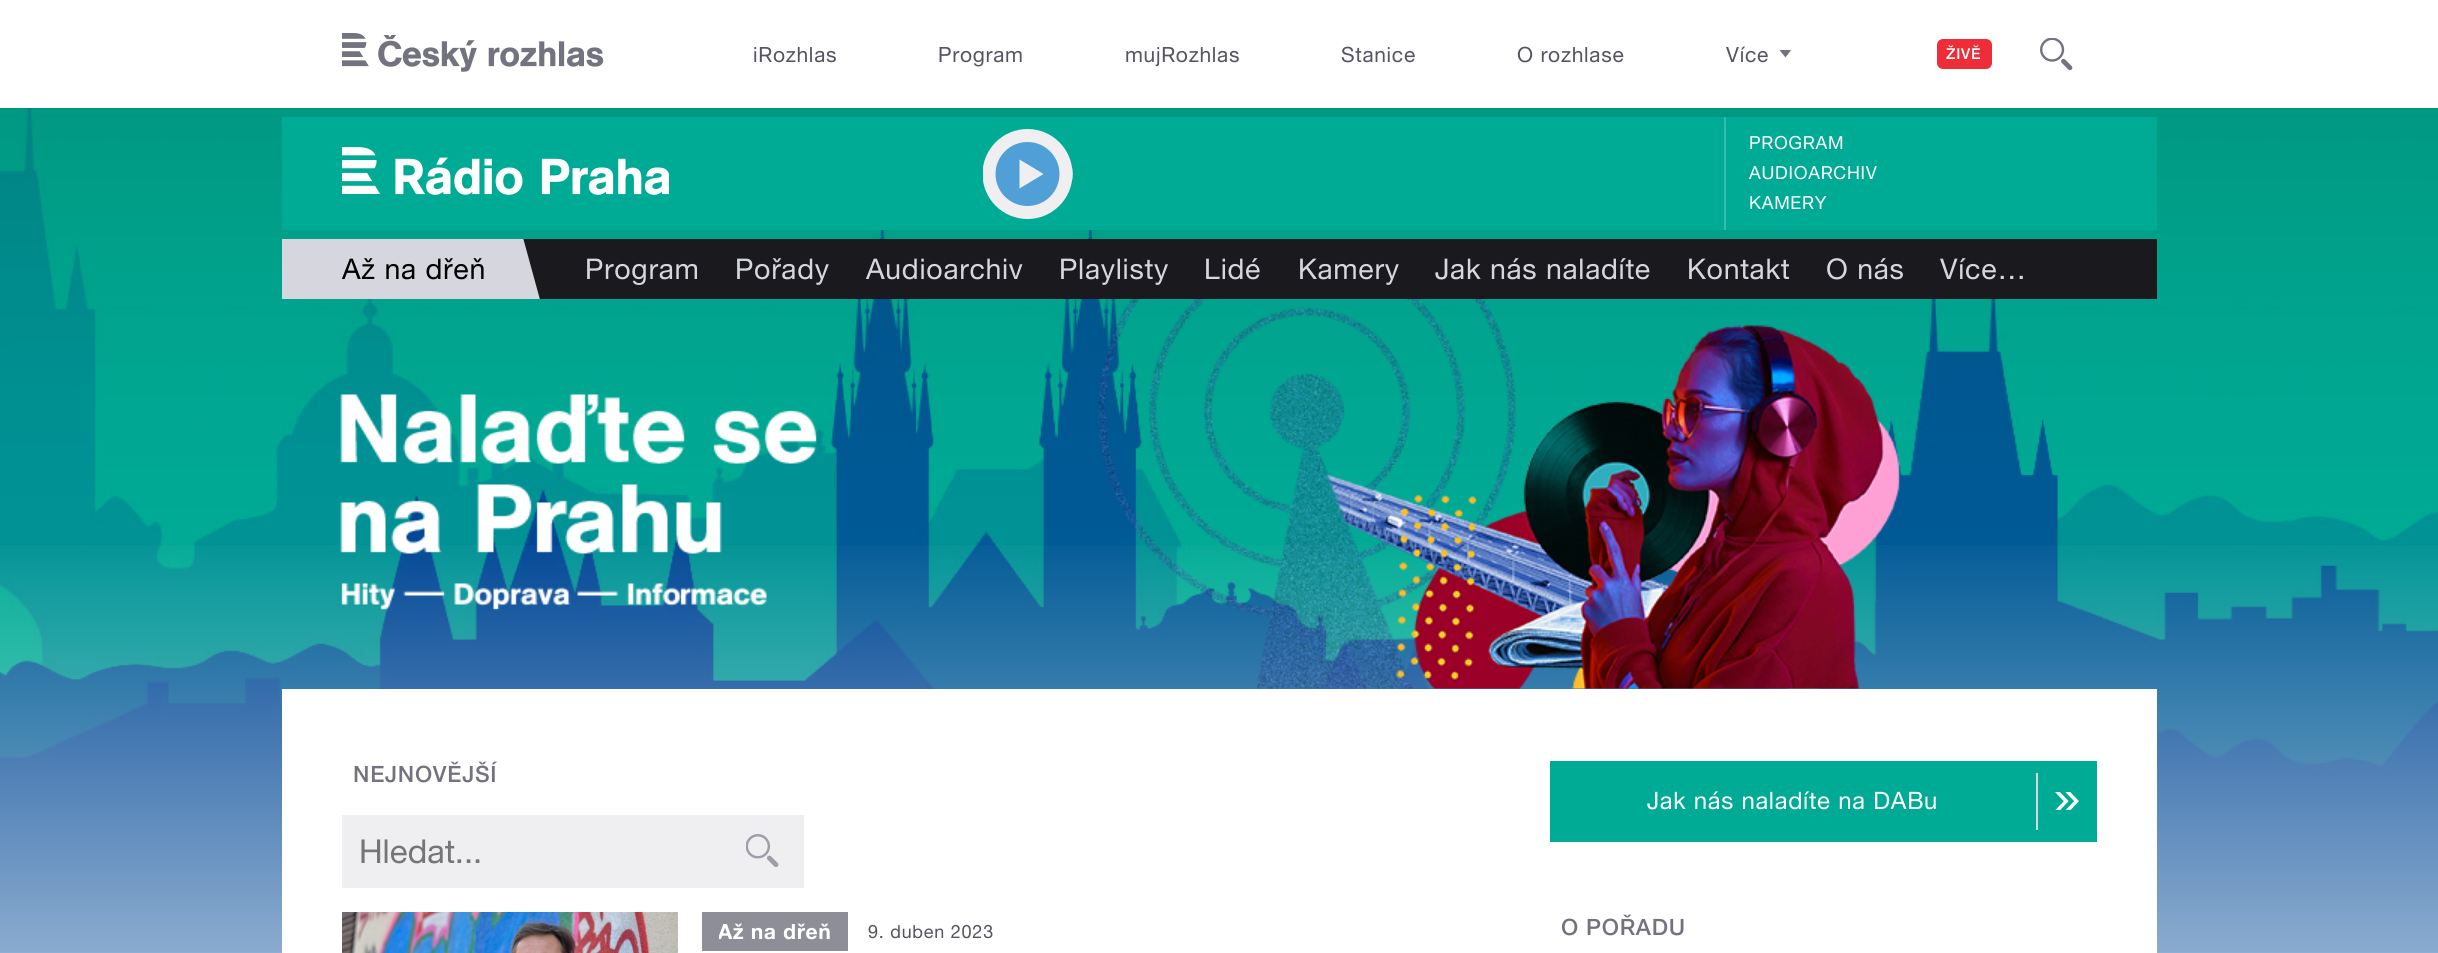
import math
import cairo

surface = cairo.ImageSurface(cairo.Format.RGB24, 2438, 953)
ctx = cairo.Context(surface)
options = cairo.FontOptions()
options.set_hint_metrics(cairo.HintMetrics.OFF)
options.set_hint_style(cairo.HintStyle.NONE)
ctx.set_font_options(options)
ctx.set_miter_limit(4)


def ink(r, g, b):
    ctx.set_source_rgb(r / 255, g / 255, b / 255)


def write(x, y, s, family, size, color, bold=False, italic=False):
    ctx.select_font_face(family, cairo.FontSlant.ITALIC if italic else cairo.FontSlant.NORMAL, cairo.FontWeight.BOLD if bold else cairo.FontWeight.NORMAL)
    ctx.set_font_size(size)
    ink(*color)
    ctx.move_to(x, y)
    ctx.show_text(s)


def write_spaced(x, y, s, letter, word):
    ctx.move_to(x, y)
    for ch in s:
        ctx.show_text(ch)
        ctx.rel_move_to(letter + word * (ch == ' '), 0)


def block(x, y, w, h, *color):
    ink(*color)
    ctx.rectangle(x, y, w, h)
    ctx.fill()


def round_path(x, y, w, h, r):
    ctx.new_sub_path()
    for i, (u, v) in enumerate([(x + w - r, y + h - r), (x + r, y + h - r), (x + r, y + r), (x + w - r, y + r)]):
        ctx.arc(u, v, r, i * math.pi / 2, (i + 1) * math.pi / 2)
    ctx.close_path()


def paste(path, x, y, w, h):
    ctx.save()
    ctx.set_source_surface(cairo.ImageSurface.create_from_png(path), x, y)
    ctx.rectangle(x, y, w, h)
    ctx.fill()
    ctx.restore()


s1 = dict(family="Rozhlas", size=33, color=(117, 117, 117))

ink(255, 255, 255)
ctx.paint()
paste("pic1.png", 342, 33, 262, 39)
ctx.select_font_face("Rozhlas")
ctx.set_font_size(21)
ink(85, 85, 97)
write_spaced(753, 62, "iRozhlas", 0.75, 0)
write_spaced(938, 62, "Program", 0.75, 0)
write_spaced(1125, 62, "mujRozhlas", 0.75, 0)
write_spaced(1341, 62, "Stanice", 0.75, 0)
write_spaced(1517, 62, "O rozhlase", 0.75, 0)
write_spaced(1726, 62, "Více", 0.75, 0)
ctx.save()
ctx.rectangle(1779, 50, 14, 9)
ctx.clip()
ink(115, 115, 127)
ctx.new_path()
ctx.move_to(1779, 49.5)
ctx.line_to(1791.5, 49.5)
ctx.line_to(1785.5, 57.5)
ctx.close_path()
ctx.fill()
ctx.restore()
ink(237, 46, 56)
round_path(1937, 39, 55, 30, 6)
ctx.fill()
ctx.select_font_face("Rozhlas Medium")
ctx.set_font_size(15)
ink(255, 255, 255)
write_spaced(1946, 59, "ŽIVĚ", 0.75, 0)
paste("pic2.png", 2040, 38, 33, 33)
paste("pic3.png", 0, 108, 2438, 845)
gradient = cairo.LinearGradient(1220, 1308, 1220, 108)
gradient.add_color_stop_rgba(0, 1, 1, 1, 1)
gradient.add_color_stop_rgba(0.65, 1, 1, 1, 0)
ctx.set_source(gradient)
ctx.rectangle(0, 545, 2438, 408)
ctx.fill()
paste("pic4.png", 340, 299, 1560, 390)
block(282, 117, 1875, 113, 0, 171, 150)
paste("pic5.png", 342, 147, 327, 48)
ctx.save()
ctx.rectangle(983, 129, 90, 90)
ctx.clip()
ink(239, 239, 242)
ctx.arc(1027.5, 174, 45, 0, 2 * math.pi)
ctx.fill()
ctx.restore()
ink(81, 159, 215)
ctx.arc(1027.5, 174, 32, 0, 2 * math.pi)
ctx.fill()
ink(239, 239, 242)
ctx.new_path()
ctx.move_to(1019.5, 159.5)
ctx.line_to(1043.5, 174)
ctx.line_to(1019.5, 188.5)
ctx.close_path()
ctx.fill()
ctx.save()
ctx.rectangle(983, 129, 90, 90)
ctx.clip()
ink(255, 255, 255)
ctx.arc(1117.5, 174, 45, 0, 2 * math.pi)
ctx.fill()
ctx.restore()
block(1724, 117, 2, 113, 51, 188, 171)
ctx.select_font_face("Rozhlas")
ctx.set_font_size(18)
ink(255, 255, 255)
write_spaced(1749, 149, "PROGRAM", 0.75, 0)
write_spaced(1749, 179, "AUDIOARCHIV", 0.75, 0)
write_spaced(1749, 209, "KAMERY", 0.75, 0)
block(282, 239, 258, 60, 214, 214, 222)
ctx.set_font_size(28.5)
ink(0, 0, 0)
write_spaced(342, 279, "Až na dřeň", 0.75, 0)
ctx.save()
ctx.rectangle(282, 239, 264, 60)
ctx.clip()
ink(26, 26, 30)
ctx.new_path()
ctx.move_to(522, 234)
ctx.line_to(595, 215)
ctx.line_to(614, 288)
ctx.line_to(542, 307)
ctx.close_path()
ctx.fill()
ctx.restore()
block(546, 239, 1611, 60, 26, 26, 30)
ink(214, 214, 222)
write_spaced(585, 279, "Program", 0.75, 0)
write_spaced(735, 279, "Pořady", 0.75, 0)
write_spaced(866, 279, "Audioarchiv", 0.75, 0)
write_spaced(1059, 279, "Playlisty", 0.75, 0)
write_spaced(1204, 279, "Lidé", 0.75, 0)
write_spaced(1298, 279, "Kamery", 0.75, 0)
write_spaced(1435, 279, "Jak nás naladíte", 0.75, 0)
write_spaced(1687, 279, "Kontakt", 0.75, 0)
write_spaced(1826, 279, "O nás", 0.75, 0)
write_spaced(1940, 279, "Více…", 0.75, 0)
block(282, 689, 1875, 264, 255, 255, 255)
ctx.select_font_face("Rozhlas Medium")
ctx.set_font_size(22.5)
ink(115, 115, 127)
write_spaced(353, 782, "NEJNOVĚJŠÍ", 0.75, 0)
block(342, 815, 462, 73, 239, 239, 242)
write(359, 863, "Hledat...", **s1)
paste("pic6.png", 746, 834, 33, 33)
paste("pic7.png", 342, 912, 336, 41)
block(702, 912, 146, 39, 142, 142, 152)
ctx.save()
ctx.rectangle(719, 915, 112, 33)
ctx.clip()
ctx.select_font_face("Rozhlas", cairo.FontSlant.NORMAL, cairo.FontWeight.BOLD)
ctx.set_font_size(21)
ink(255, 255, 255)
write_spaced(718, 939, "Až na dřeň", 0.75, 0)
ctx.restore()
ctx.set_font_size(18)
ink(85, 85, 97)
write_spaced(868, 938, "9. duben 2023", 0.75, 0)
block(1550, 761, 547, 81, 0, 171, 150)
block(2036, 773, 2, 57, 214, 214, 222)
ctx.set_font_size(24)
ink(255, 255, 255)
write_spaced(1647, 809, "Jak nás naladíte na DABu", 0.75, 0)
paste("pic8.png", 2055, 792, 24, 18)
ctx.select_font_face("Rozhlas Medium")
ctx.set_font_size(22.5)
ink(115, 115, 127)
write_spaced(1561, 935, "O POŘADU", 0.75, 0)
surface.write_to_png("screenshot.png")
